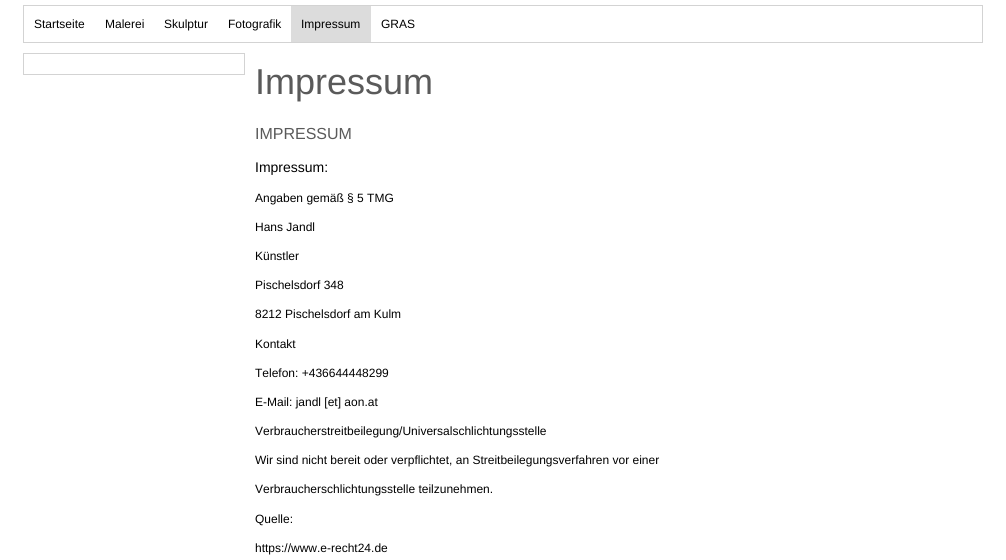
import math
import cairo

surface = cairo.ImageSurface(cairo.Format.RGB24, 1006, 560)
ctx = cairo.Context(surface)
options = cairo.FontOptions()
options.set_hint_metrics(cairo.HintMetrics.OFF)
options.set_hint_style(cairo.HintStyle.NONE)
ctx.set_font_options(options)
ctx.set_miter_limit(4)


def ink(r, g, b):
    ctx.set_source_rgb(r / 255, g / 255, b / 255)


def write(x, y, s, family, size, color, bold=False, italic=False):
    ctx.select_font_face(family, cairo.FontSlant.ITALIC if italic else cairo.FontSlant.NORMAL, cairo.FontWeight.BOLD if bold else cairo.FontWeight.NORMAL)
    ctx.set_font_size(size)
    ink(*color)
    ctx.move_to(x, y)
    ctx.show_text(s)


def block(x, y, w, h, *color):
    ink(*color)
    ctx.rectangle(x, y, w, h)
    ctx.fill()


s1 = dict(family="Liberation Sans", size=12, color=(0, 0, 0))
s2 = dict(family="Liberation Sans", size=36, color=(90, 90, 90))
s3 = dict(family="Liberation Sans", size=16, color=(90, 90, 90))
s4 = dict(family="Liberation Sans", size=14, color=(0, 0, 0))

ink(255, 255, 255)
ctx.paint()
ctx.rectangle(23.5, 5.5, 959, 37)
ink(211, 211, 211)
ctx.set_line_width(1)
ctx.stroke()
write(34, 28, "Startseite", **s1)
write(105, 28, "Malerei", **s1)
write(164, 28, "Skulptur", **s1)
write(228, 28, "Fotografik", **s1)
block(291, 6, 80, 36, 220, 220, 220)
write(301, 28, "Impressum", **s1)
write(381, 28, "GRAS", **s1)
ctx.rectangle(23.5, 53.5, 221, 21)
ink(211, 211, 211)
ctx.stroke()
write(255, 94, "Impressum", **s2)
write(255, 139, "IMPRESSUM", **s3)
write(255, 172, "Impressum:", **s4)
write(255, 202, "Angaben gemäß § 5 TMG", **s1)
write(255, 231, "Hans Jandl", **s1)
write(255, 260, "Künstler", **s1)
write(255, 289, "Pischelsdorf 348", **s1)
write(255, 318, "8212 Pischelsdorf am Kulm", **s1)
write(255, 348, "Kontakt", **s1)
write(255, 377, "Telefon: +436644448299", **s1)
write(255, 406, "E-Mail: jandl [et] aon.at", **s1)
write(255, 435, "Verbraucherstreitbeilegung/Universalschlichtungsstelle", **s1)
write(255, 464, "Wir sind nicht bereit oder verpflichtet, an Streitbeilegungsverfahren vor einer", **s1)
write(255, 493, "Verbraucherschlichtungsstelle teilzunehmen.", **s1)
write(255, 523, "Quelle:", **s1)
write(255, 552, "https://www.e-recht24.de", **s1)
surface.write_to_png("screenshot.png")
